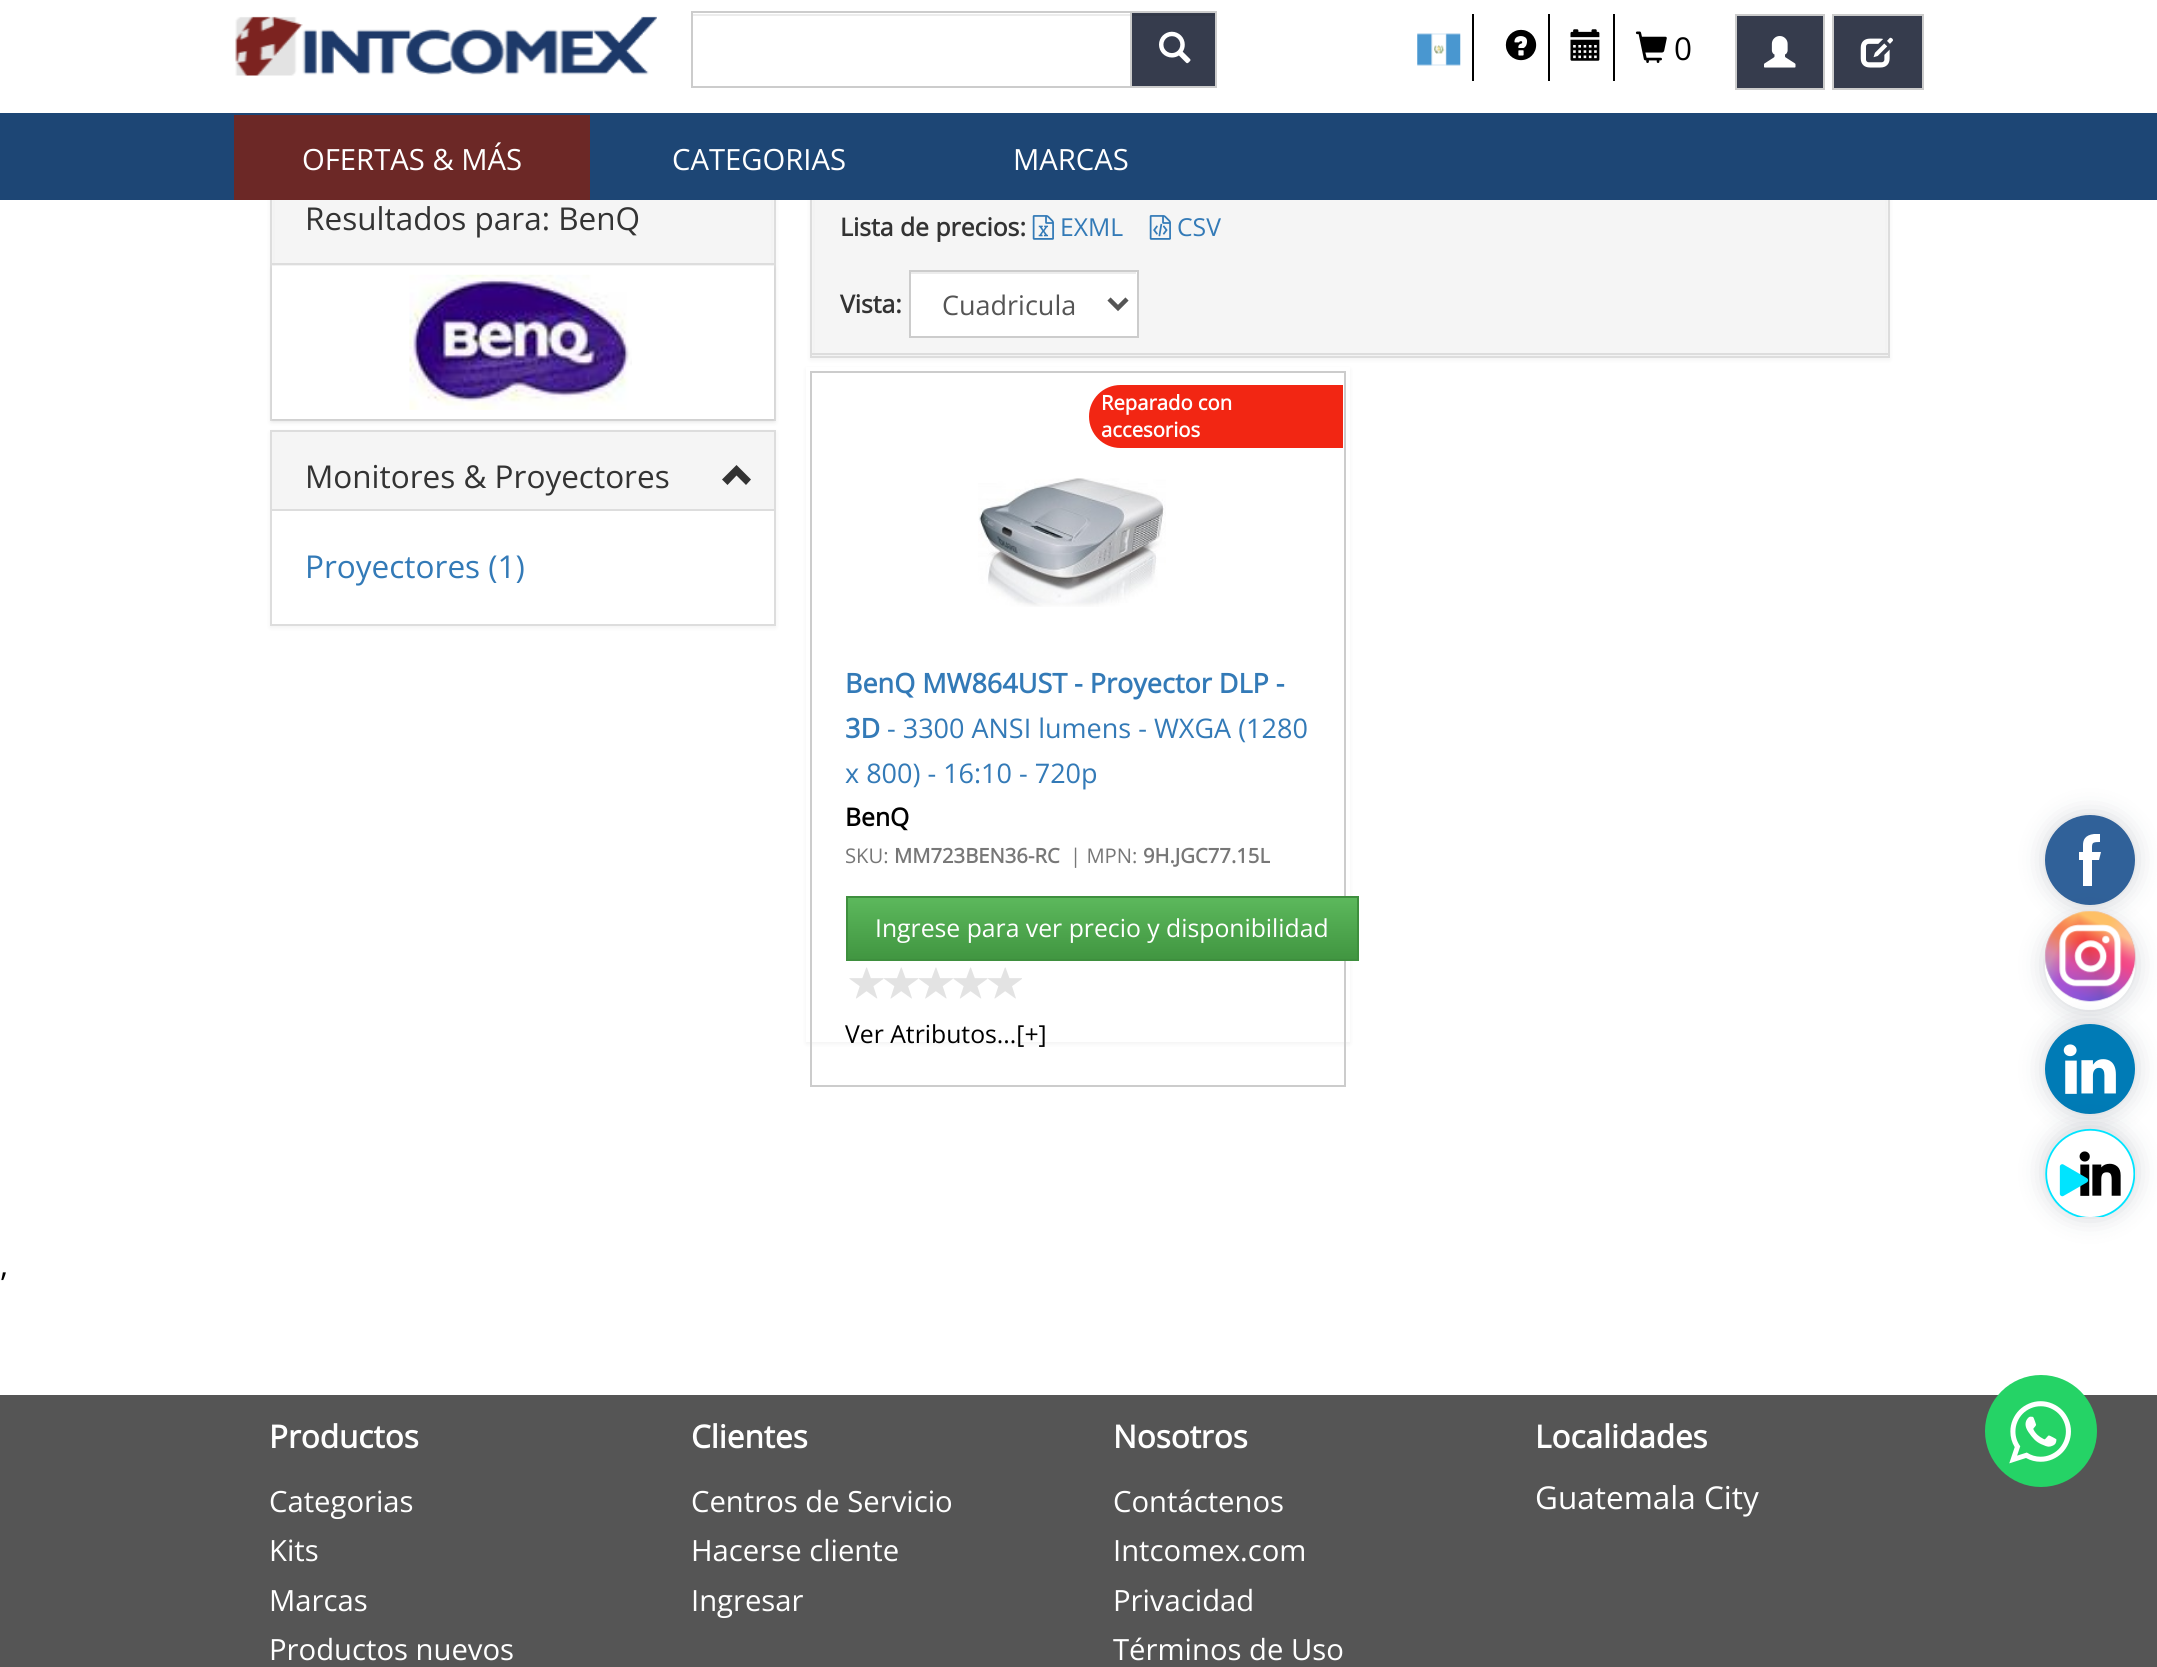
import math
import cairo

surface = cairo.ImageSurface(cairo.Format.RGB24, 2157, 1667)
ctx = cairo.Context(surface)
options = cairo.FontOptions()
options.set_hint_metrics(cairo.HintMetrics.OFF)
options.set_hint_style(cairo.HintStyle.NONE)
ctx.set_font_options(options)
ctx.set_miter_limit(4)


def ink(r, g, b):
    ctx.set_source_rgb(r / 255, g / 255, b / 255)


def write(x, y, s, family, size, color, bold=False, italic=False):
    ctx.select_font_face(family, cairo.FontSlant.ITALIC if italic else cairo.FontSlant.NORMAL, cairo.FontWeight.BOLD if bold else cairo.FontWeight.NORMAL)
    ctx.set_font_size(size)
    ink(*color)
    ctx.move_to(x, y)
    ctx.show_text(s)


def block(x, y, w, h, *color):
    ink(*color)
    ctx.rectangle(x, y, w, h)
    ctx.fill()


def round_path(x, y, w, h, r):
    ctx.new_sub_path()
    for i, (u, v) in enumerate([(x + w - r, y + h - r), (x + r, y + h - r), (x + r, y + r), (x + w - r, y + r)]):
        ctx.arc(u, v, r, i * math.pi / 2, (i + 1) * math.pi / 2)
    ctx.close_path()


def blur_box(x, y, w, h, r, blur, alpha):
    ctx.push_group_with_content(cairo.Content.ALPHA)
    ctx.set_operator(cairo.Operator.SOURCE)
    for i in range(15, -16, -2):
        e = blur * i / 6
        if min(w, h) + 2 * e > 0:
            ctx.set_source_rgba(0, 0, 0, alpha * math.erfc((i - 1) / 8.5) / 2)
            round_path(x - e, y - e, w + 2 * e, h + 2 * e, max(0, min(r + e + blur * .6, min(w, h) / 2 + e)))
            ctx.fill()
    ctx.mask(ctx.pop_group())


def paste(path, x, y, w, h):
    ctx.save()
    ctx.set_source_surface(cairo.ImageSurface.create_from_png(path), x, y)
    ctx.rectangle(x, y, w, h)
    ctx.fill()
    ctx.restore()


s1 = dict(family="Open Sans", size=31.5, color=(0, 0, 0))
s2 = dict(family="Open Sans", size=29.25, color=(255, 255, 255))
s3 = dict(family="Open Sans", size=31.5, color=(51, 51, 51))
s4 = dict(family="Open Sans", size=31.5, color=(51, 122, 183))
s5 = dict(family="Open Sans", size=24.75, color=(51, 51, 51), bold=True)
s6 = dict(family="Open Sans", size=24.75, color=(51, 122, 183))
s7 = dict(family="Open Sans", size=27, color=(85, 85, 85))
s8 = dict(family="Open Sans", size=20.25, color=(255, 255, 255), bold=True)
s9 = dict(family="Open Sans", size=27, color=(51, 122, 183), bold=True)
s10 = dict(family="Open Sans", size=27, color=(51, 122, 183))
s11 = dict(family="Open Sans", size=24.75, color=(0, 0, 0), bold=True)
s12 = dict(family="Open Sans", size=20.25, color=(119, 119, 119))
s13 = dict(family="Open Sans", size=20.25, color=(119, 119, 119), bold=True)
s14 = dict(family="Open Sans", size=24.75, color=(255, 255, 255))
s15 = dict(family="Open Sans", size=24.75, color=(0, 0, 0))
s16 = dict(family="Open Sans", size=31.5, color=(255, 255, 255), bold=True)
s17 = dict(family="Open Sans", size=31.5, color=(255, 255, 255))

ink(255, 255, 255)
ctx.paint()
paste("pic1.png", 235, 16, 422, 60)
block(693, 14, 437, 2, 236, 236, 236)
ctx.rectangle(692, 12, 439, 75)
ink(204, 204, 204)
ctx.stroke()
block(1132, 13, 83, 73, 54, 60, 77)
block(1132, 14, 83, 2, 50, 56, 71)
ctx.rectangle(1131, 12, 85, 75)
ink(204, 204, 204)
ctx.stroke()
paste("pic2.png", 1159, 31, 32, 33)
block(1472, 14, 2, 67, 0, 0, 0)
paste("pic3.png", 1417, 33, 44, 33)
block(1548, 14, 2, 67, 0, 0, 0)
paste("pic4.png", 1505, 29, 32, 32)
block(1613, 14, 2, 67, 0, 0, 0)
paste("pic5.png", 1570, 29, 30, 32)
paste("pic6.png", 1635, 31, 32, 32)
write(1674, 60, "0", **s1)
ink(54, 60, 77)
ctx.rectangle(1736, 15, 88, 74)
ctx.fill_preserve()
ink(204, 204, 204)
ctx.stroke()
paste("pic7.png", 1764, 36, 32, 32)
ink(54, 60, 77)
ctx.rectangle(1833, 15, 90, 74)
ctx.fill_preserve()
ink(204, 204, 204)
ctx.stroke()
paste("pic8.png", 1860, 37, 33, 31)
ink(0, 0, 0)
blur_box(270, 173, 506, 250, 0, 2, 0.05)
ctx.rectangle(271, 172, 504, 248)
ink(221, 221, 221)
ctx.stroke()
ink(0, 0, 0)
blur_box(810, 173, 1080, 187, 0, 2, 0.05)
ctx.rectangle(811, 172, 1078, 185)
ink(221, 221, 221)
ctx.stroke()
block(0, 113, 2157, 87, 29, 70, 117)
block(234, 115, 356, 85, 108, 40, 38)
write(302, 170, "OFERTAS & MÁS", **s2)
write(672, 170, "CATEGORIAS", **s2)
write(1013, 170, "MARCAS", **s2)
block(275, 200, 496, 66, 245, 245, 245)
block(272, 263, 502, 2, 221, 221, 221)
write(305, 230, "Resultados para: BenQ", **s3)
ink(0, 0, 0)
blur_box(272, 268, 502, 153, 0, 2, 0.07)
block(272, 266, 502, 153, 255, 255, 255)
paste("pic9.png", 409, 274, 223, 136)
ink(0, 0, 0)
blur_box(270, 432, 506, 196, 0, 2, 0.05)
block(272, 511, 502, 113, 255, 255, 255)
ctx.rectangle(271, 431, 504, 194)
ink(221, 221, 221)
ctx.stroke()
block(272, 432, 502, 77, 245, 245, 245)
block(272, 509, 502, 2, 221, 221, 221)
write(305, 488, "Monitores & Proyectores", **s3)
ctx.new_path()
ctx.move_to(751, 479.5)
ctx.line_to(746, 485)
ctx.line_to(736.5, 475.5)
ctx.line_to(727.5, 485)
ctx.line_to(722, 479.5)
ctx.line_to(736.5, 465)
ctx.close_path()
ctx.fill()
write(305, 578, "Proyectores (1)", **s4)
block(815, 200, 1070, 155, 245, 245, 245)
block(812, 353, 1076, 2, 221, 221, 221)
write(840, 236, "Lista de precios:", **s5)
paste("pic10.png", 1032, 215, 22, 25)
write(1060, 236, "EXML", **s6)
paste("pic11.png", 1149, 215, 22, 25)
write(1177, 236, "CSV", **s6)
write(840, 313, "Vista:", **s5)
block(911, 272, 226, 64, 255, 255, 255)
block(911, 272, 225, 2, 236, 236, 236)
ctx.rectangle(910, 271, 228, 66)
ink(204, 204, 204)
ctx.stroke()
ctx.new_path()
ctx.move_to(1109, 299)
ctx.line_to(1118, 308)
ctx.line_to(1127, 299)
ink(85, 85, 85)
ctx.set_line_width(4.5)
ctx.stroke()
write(942, 315, "Cuadricula", **s7)
ink(0, 0, 0)
blur_box(806, 369, 544, 675, 0, 2, 0.05)
block(806, 367, 544, 675, 255, 255, 255)
ctx.rectangle(811, 372, 534, 714)
ink(204, 204, 204)
ctx.set_line_width(2)
ctx.stroke()
ink(242, 38, 19)
ctx.new_path()
ctx.move_to(1120.5, 385)
ctx.line_to(1343, 385)
ctx.line_to(1343, 448)
ctx.line_to(1120.5, 448)
ctx.curve_to(1103, 448, 1089, 434, 1089, 416.5)
ctx.curve_to(1089, 399, 1103, 385, 1120.5, 385)
ctx.close_path()
ctx.fill()
write(1101, 410, "Reparado con", **s8)
write(1101, 437, "accesorios", **s8)
paste("pic12.png", 978, 478, 188, 129)
write(845, 693, "BenQ MW864UST - Proyector DLP -", **s9)
write(845, 738, "3D", **s9)
write(887, 738, "- 3300 ANSI lumens - WXGA (1280", **s10)
write(845, 783, "x 800) - 16:10 - 720p", **s10)
write(845, 826, "BenQ", **s11)
write(845, 863, "SKU:", **s12)
write(894, 863, "MM723BEN36-RC", **s13)
write(1070, 863, "| MPN:", **s12)
write(1143, 863, "9H.JGC77.15L", **s13)
gradient = cairo.LinearGradient(1103, 898, 1103, 959)
gradient.add_color_stop_rgba(0, 0.361, 0.722, 0.361, 1)
gradient.add_color_stop_rgba(1, 0.255, 0.588, 0.255, 1)
ctx.set_source(gradient)
ctx.rectangle(848, 898, 509, 61)
ctx.fill()
ctx.rectangle(847, 897, 511, 63)
ink(62, 143, 62)
ctx.stroke()
write(875, 937, "Ingrese para ver precio y disponibilidad", **s14)
paste("pic13.png", 849, 967, 173, 32)
write(845, 1043, "Ver Atributos...[+]", **s15)
ink(16, 34, 55)
blur_box(2045, 815, 90, 90, 45, 12.5, 0.2)
ink(48, 97, 153)
ctx.arc(2090, 860, 45, 0, 2 * math.pi)
ctx.fill()
ctx.save()
ctx.rectangle(2079, 833, 23, 54)
ctx.clip()
ink(255, 255, 255)
ctx.new_path()
ctx.move_to(2083, 886)
ctx.line_to(2092, 886)
ctx.line_to(2092, 860)
ctx.line_to(2099, 860)
ctx.line_to(2101, 852)
ctx.line_to(2092, 852)
ctx.curve_to(2092, 843, 2091, 842, 2100, 842)
ctx.line_to(2100, 834)
ctx.line_to(2094, 834)
ctx.curve_to(2085, 835, 2083, 840, 2083, 845)
ctx.line_to(2083, 852)
ctx.line_to(2078, 852)
ctx.line_to(2078, 860)
ctx.line_to(2083, 860)
ctx.close_path()
ctx.fill()
ctx.restore()
ctx.save()
ctx.set_fill_rule(cairo.FillRule.EVEN_ODD)
ctx.new_path()
ctx.move_to(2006, 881)
ctx.line_to(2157, 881)
ctx.line_to(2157, 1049)
ctx.line_to(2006, 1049)
ctx.close_path()
ctx.move_to(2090, 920)
ctx.curve_to(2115, 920, 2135, 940, 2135, 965)
ctx.curve_to(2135, 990, 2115, 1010, 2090, 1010)
ctx.curve_to(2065, 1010, 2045, 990, 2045, 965)
ctx.curve_to(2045, 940, 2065, 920, 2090, 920)
ctx.close_path()
ctx.clip()
ink(16, 34, 55)
blur_box(2045, 920, 90, 90, 45, 12.5, 0.2)
ctx.restore()
paste("pic14.png", 2045, 911, 91, 91)
ink(16, 34, 55)
blur_box(2045, 1024, 90, 90, 45, 12.5, 0.2)
ink(0, 123, 182)
ctx.arc(2090, 1069, 45, 0, 2 * math.pi)
ctx.fill()
paste("pic15.png", 2063, 1044, 53, 50)
ink(16, 34, 55)
blur_box(2045, 1127, 90, 90, 45, 12.5, 0.2)
paste("pic16.png", 2045, 1128, 90, 89)
write(0, 1276, ",", **s1)
block(0, 1395, 2157, 272, 85, 85, 85)
write(269, 1448, "Productos", **s16)
write(269, 1512, "Categorias", **s2)
write(269, 1561, "Kits", **s2)
write(269, 1611, "Marcas", **s2)
write(269, 1660, "Productos nuevos", **s2)
write(691, 1448, "Clientes", **s16)
write(691, 1512, "Centros de Servicio", **s2)
write(691, 1561, "Hacerse cliente", **s2)
write(691, 1611, "Ingresar", **s2)
write(1113, 1448, "Nosotros", **s16)
write(1113, 1512, "Contáctenos", **s2)
write(1113, 1561, "Intcomex.com", **s2)
write(1113, 1611, "Privacidad", **s2)
write(1113, 1660, "Términos de Uso", **s2)
write(1535, 1448, "Localidades", **s16)
write(1535, 1509, "Guatemala City", **s17)
ink(37, 211, 102)
ctx.new_path()
ctx.arc(2041, 1431, 56, 0, 2 * math.pi)
ctx.fill()
paste("pic17.png", 2009, 1401, 62, 63)
surface.write_to_png("screenshot.png")
